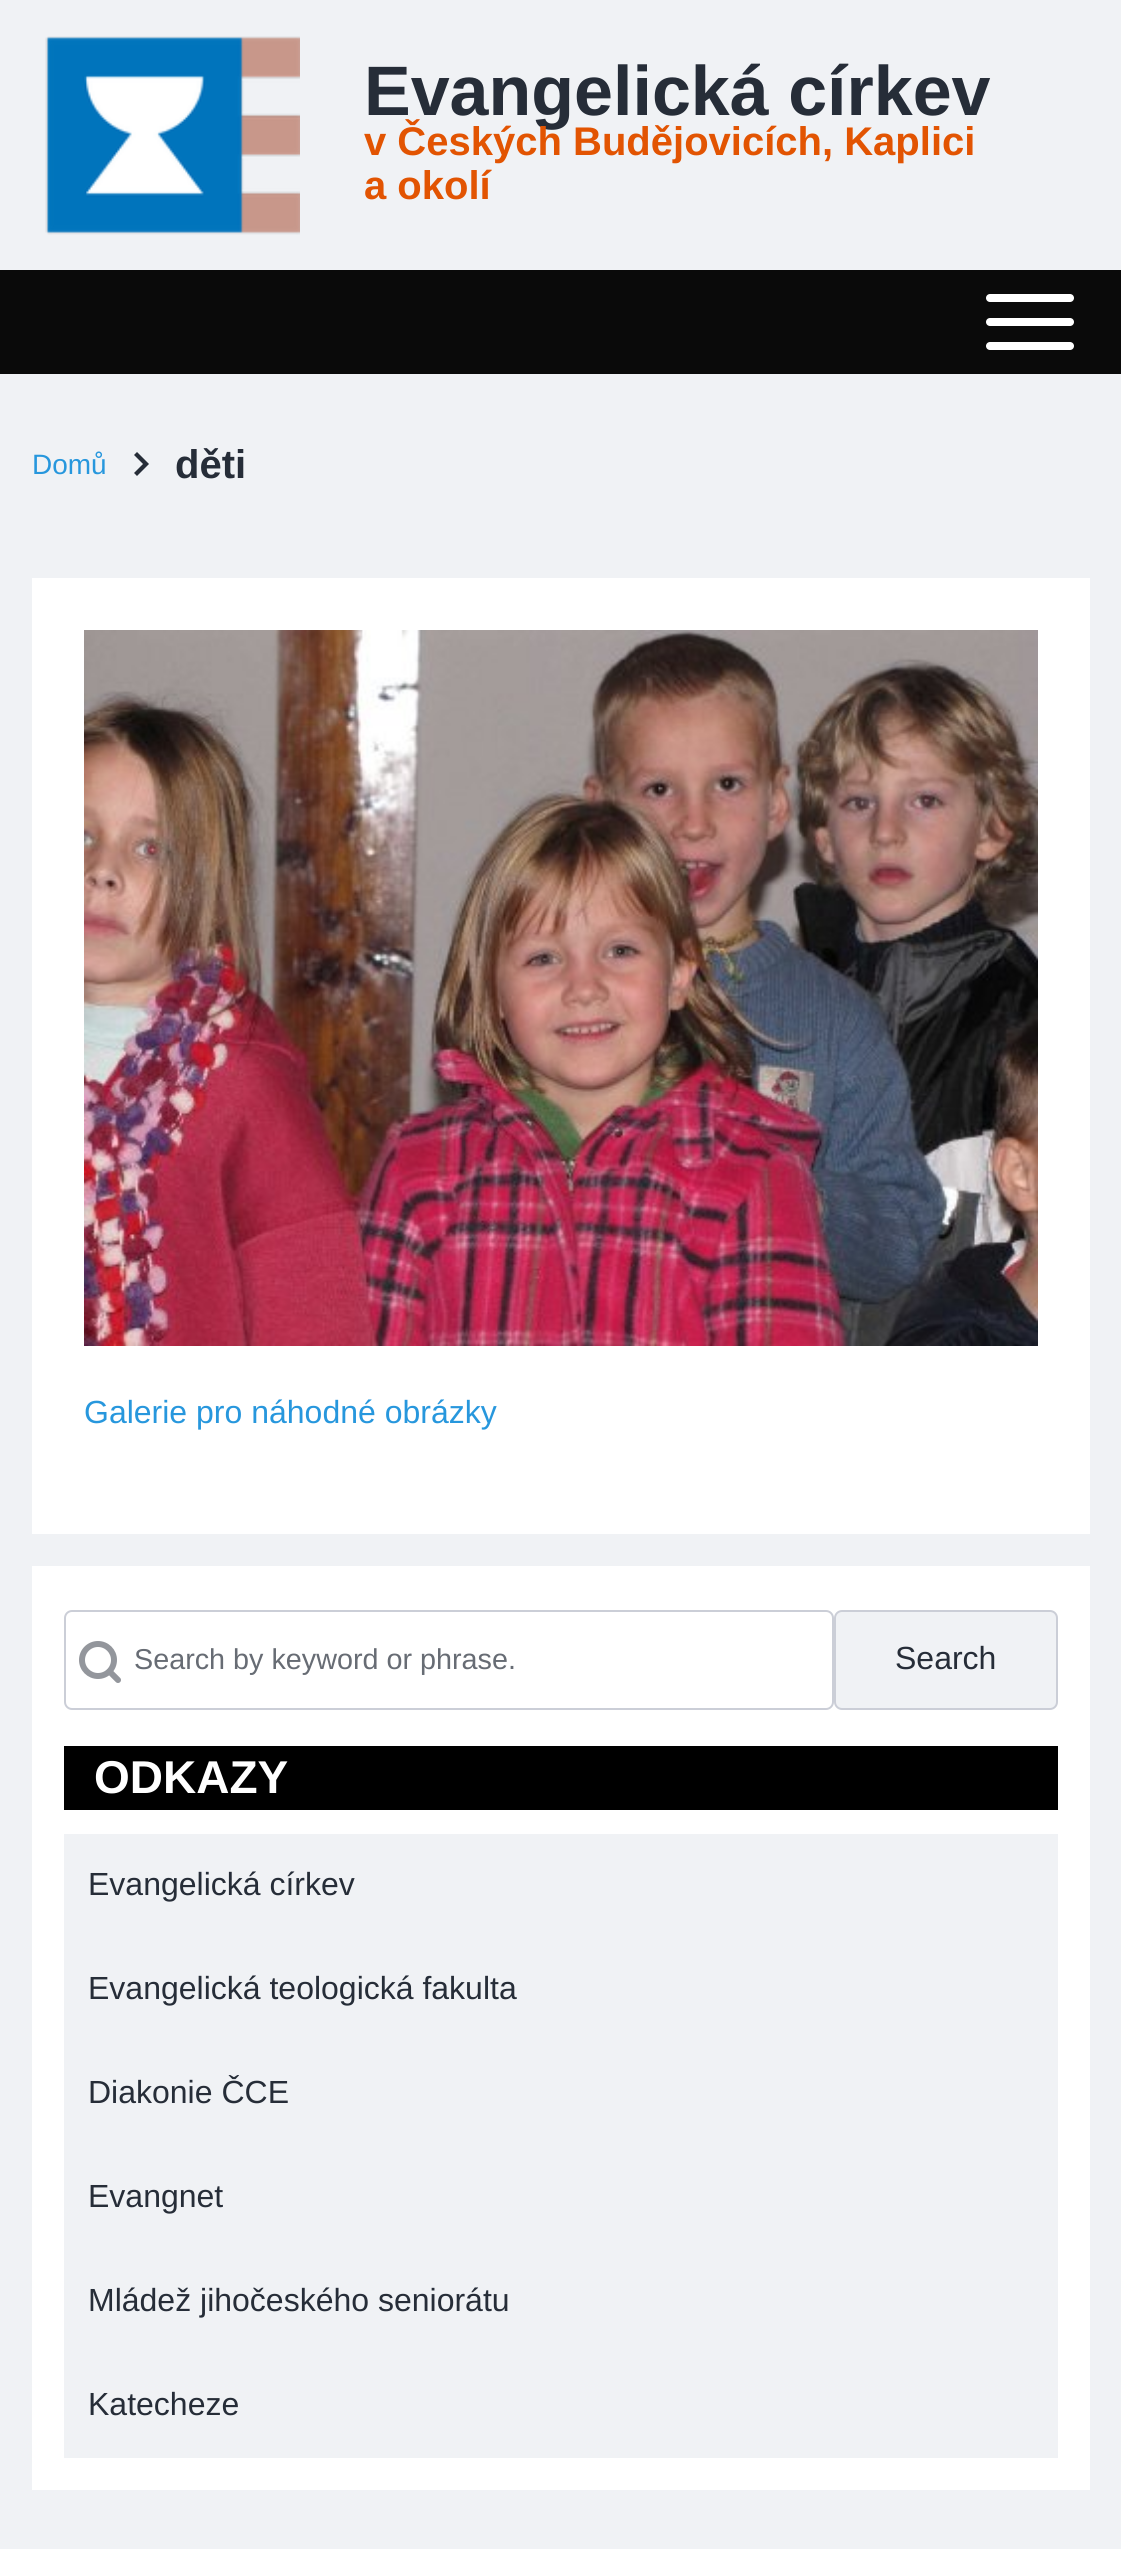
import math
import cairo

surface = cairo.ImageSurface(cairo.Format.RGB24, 1121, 2549)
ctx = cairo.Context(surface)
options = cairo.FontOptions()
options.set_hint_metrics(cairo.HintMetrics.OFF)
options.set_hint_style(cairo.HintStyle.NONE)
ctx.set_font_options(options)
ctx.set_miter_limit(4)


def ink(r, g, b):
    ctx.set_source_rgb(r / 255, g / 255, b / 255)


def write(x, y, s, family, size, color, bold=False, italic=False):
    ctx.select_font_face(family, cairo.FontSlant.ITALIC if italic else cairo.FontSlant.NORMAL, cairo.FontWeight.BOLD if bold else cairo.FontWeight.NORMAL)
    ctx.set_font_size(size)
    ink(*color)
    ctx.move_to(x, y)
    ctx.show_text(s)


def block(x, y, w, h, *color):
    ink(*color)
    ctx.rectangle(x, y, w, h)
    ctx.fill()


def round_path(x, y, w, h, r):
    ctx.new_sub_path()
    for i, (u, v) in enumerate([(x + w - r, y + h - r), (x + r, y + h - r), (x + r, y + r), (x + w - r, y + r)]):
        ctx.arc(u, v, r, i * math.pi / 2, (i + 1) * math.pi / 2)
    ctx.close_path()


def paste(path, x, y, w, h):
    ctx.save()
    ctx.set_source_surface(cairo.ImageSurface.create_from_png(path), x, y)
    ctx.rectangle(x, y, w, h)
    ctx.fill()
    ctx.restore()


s1 = dict(family="Liberation Sans", size=70, color=(38, 45, 56), bold=True)
s2 = dict(family="Liberation Sans", size=40, color=(226, 84, 2), bold=True)
s3 = dict(family="Liberation Sans", size=28, color=(39, 151, 221))
s4 = dict(family="Liberation Sans", size=40, color=(38, 45, 56), bold=True)
s5 = dict(family="Liberation Sans", size=32, color=(39, 151, 221))
s6 = dict(family="Liberation Sans", size=28.75, color=(103, 108, 116))
s7 = dict(family="Liberation Sans", size=32, color=(38, 45, 56))
s8 = dict(family="Liberation Sans", size=46, color=(255, 255, 255), bold=True)

ink(240, 242, 245)
ctx.paint()
paste("pic1.png", 45, 36, 255, 199)
write(364, 115, "Evangelická církev", **s1)
write(364, 155, "v Českých Budějovicích, Kaplici", **s2)
write(364, 199, "a okolí", **s2)
block(0, 270, 1121, 104, 10, 10, 10)
ctx.new_path()
ctx.move_to(990, 346)
ctx.line_to(1070, 346)
ctx.close_path()
ink(255, 255, 255)
ctx.set_line_width(8)
ctx.set_line_cap(cairo.LineCap.ROUND)
ctx.set_line_join(cairo.LineJoin.ROUND)
ctx.stroke()
ctx.new_path()
ctx.move_to(990, 322)
ctx.line_to(1070, 322)
ctx.close_path()
ctx.stroke()
ctx.new_path()
ctx.move_to(990, 298)
ctx.line_to(1070, 298)
ctx.close_path()
ctx.stroke()
write(32, 474, "Domů", **s3)
ink(38, 45, 56)
ctx.new_path()
ctx.move_to(143, 464)
ctx.line_to(134, 455)
ctx.line_to(137, 452)
ctx.line_to(149, 464)
ctx.line_to(137, 476)
ctx.line_to(134, 473)
ctx.close_path()
ctx.fill()
write(175, 478, "děti", **s4)
block(32, 578, 1058, 956, 255, 255, 255)
paste("pic2.png", 84, 630, 954, 716)
write(84, 1423, "Galerie pro náhodné obrázky", **s5)
block(32, 1566, 1058, 924, 255, 255, 255)
round_path(65, 1611, 768, 98, 7)
ink(203, 206, 215)
ctx.set_line_width(2)
ctx.set_line_cap(cairo.LineCap.BUTT)
ctx.set_line_join(cairo.LineJoin.MITER)
ctx.stroke()
ctx.arc(98, 1660, 16, 0, 2 * math.pi)
ink(147, 150, 156)
ctx.set_line_width(6)
ctx.stroke()
ctx.new_path()
ctx.move_to(118, 1680)
ctx.line_to(109.5, 1671.5)
ctx.set_line_cap(cairo.LineCap.ROUND)
ctx.set_line_join(cairo.LineJoin.ROUND)
ctx.stroke()
write(134, 1669, "Search by keyword or phrase.", **s6)
ink(240, 242, 245)
round_path(835, 1611, 222, 98, 7)
ctx.fill_preserve()
ink(203, 206, 215)
ctx.set_line_width(2)
ctx.set_line_cap(cairo.LineCap.BUTT)
ctx.set_line_join(cairo.LineJoin.MITER)
ctx.stroke()
write(895, 1669, "Search", **s7)
block(64, 1746, 994, 64, 0, 0, 0)
write(94, 1793, "ODKAZY", **s8)
block(64, 1834, 994, 624, 240, 242, 245)
write(88, 1895, "Evangelická církev", **s7)
write(88, 1999, "Evangelická teologická fakulta", **s7)
write(88, 2103, "Diakonie ČCE", **s7)
write(88, 2207, "Evangnet", **s7)
write(88, 2311, "Mládež jihočeského seniorátu", **s7)
write(88, 2415, "Katecheze", **s7)
surface.write_to_png("screenshot.png")
